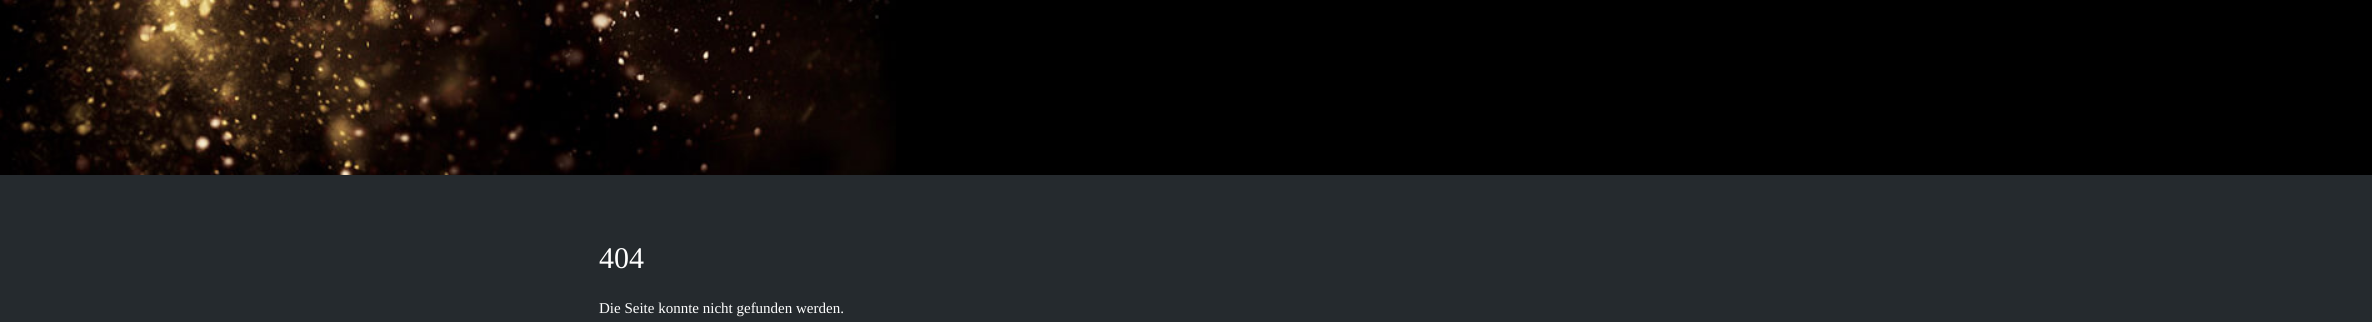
import math
import cairo

surface = cairo.ImageSurface(cairo.Format.RGB24, 2372, 322)
ctx = cairo.Context(surface)
options = cairo.FontOptions()
options.set_hint_metrics(cairo.HintMetrics.OFF)
options.set_hint_style(cairo.HintStyle.NONE)
ctx.set_font_options(options)
ctx.set_miter_limit(4)


def ink(r, g, b):
    ctx.set_source_rgb(r / 255, g / 255, b / 255)


def write(x, y, s, family, size, color, bold=False, italic=False):
    ctx.select_font_face(family, cairo.FontSlant.ITALIC if italic else cairo.FontSlant.NORMAL, cairo.FontWeight.BOLD if bold else cairo.FontWeight.NORMAL)
    ctx.set_font_size(size)
    ink(*color)
    ctx.move_to(x, y)
    ctx.show_text(s)


def block(x, y, w, h, *color):
    ink(*color)
    ctx.rectangle(x, y, w, h)
    ctx.fill()


def paste(path, x, y, w, h):
    ctx.save()
    ctx.set_source_surface(cairo.ImageSurface.create_from_png(path), x, y)
    ctx.rectangle(x, y, w, h)
    ctx.fill()
    ctx.restore()


s1 = dict(family="Liberation Serif", size=30, color=(255, 255, 255))
s2 = dict(family="Liberation Serif", size=15, color=(255, 255, 255))

ink(0, 0, 0)
ctx.paint()
paste("pic1.png", 0, 0, 896, 175)
block(0, 175, 2372, 147, 37, 42, 46)
write(599, 268, "404", **s1)
write(599, 313, "Die Seite konnte nicht gefunden werden.", **s2)
surface.write_to_png("screenshot.png")
